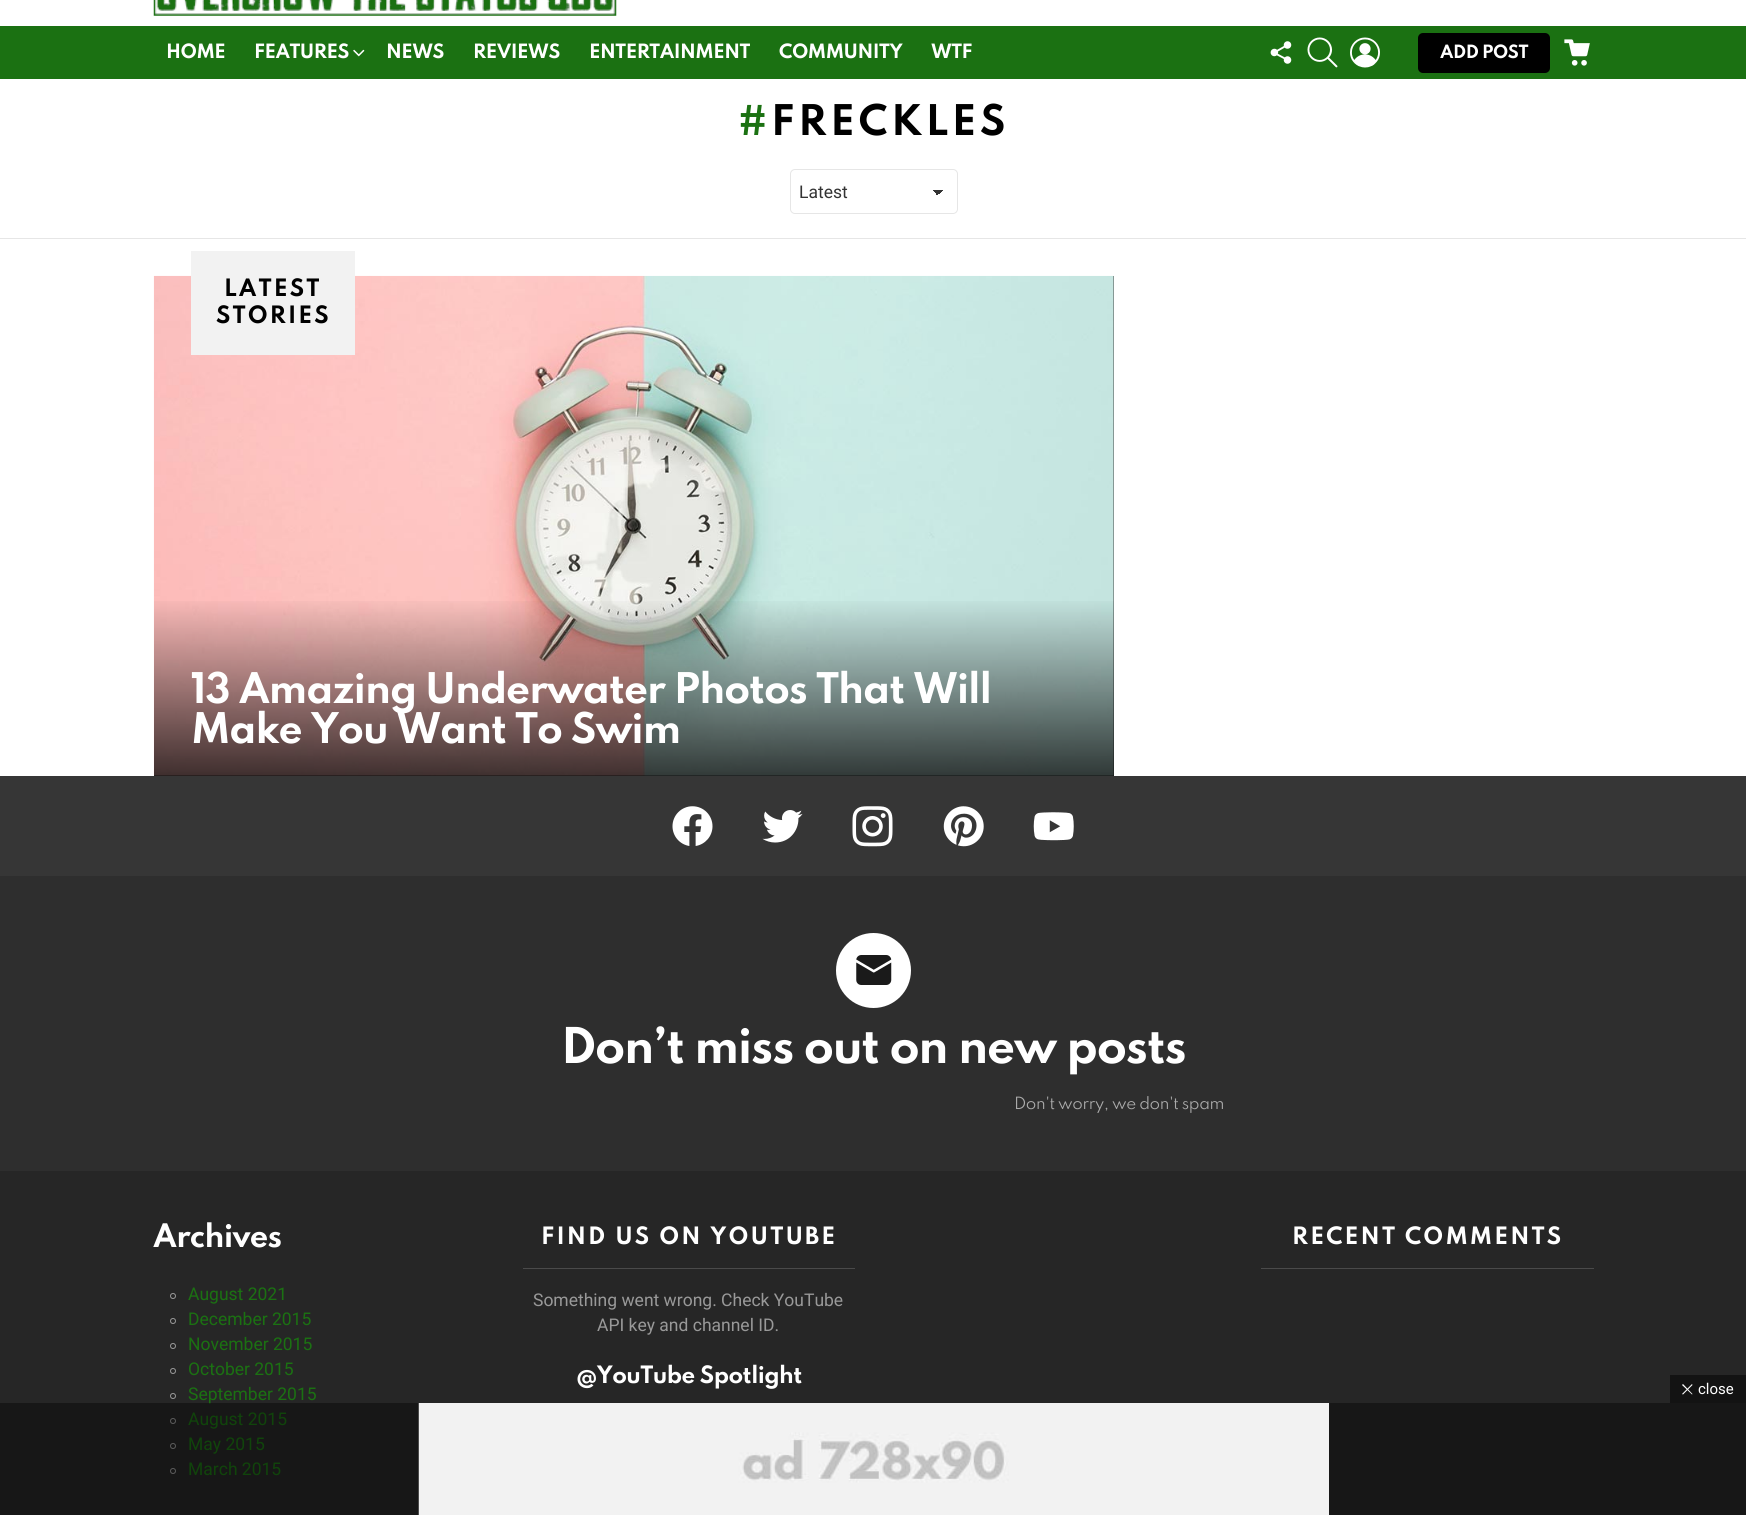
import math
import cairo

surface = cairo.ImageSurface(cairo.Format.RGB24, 1746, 1515)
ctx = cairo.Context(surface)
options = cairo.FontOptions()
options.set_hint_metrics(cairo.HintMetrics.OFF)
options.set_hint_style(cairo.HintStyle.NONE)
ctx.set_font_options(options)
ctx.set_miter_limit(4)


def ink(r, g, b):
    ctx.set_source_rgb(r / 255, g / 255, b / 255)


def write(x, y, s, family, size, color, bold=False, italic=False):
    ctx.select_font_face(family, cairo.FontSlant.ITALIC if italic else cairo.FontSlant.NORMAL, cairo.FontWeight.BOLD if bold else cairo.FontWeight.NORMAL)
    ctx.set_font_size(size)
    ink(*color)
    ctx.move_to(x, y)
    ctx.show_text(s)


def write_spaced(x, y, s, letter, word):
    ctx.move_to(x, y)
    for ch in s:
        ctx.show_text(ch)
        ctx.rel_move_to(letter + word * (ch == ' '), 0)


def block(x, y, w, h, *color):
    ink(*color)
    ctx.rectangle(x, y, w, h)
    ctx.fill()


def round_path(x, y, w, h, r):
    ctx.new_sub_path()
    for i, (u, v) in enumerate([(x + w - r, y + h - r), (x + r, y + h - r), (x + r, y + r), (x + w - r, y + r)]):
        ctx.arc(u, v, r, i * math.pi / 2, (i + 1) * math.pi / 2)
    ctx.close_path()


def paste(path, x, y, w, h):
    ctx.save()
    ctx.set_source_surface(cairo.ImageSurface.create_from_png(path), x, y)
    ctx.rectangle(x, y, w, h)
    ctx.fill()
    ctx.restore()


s1 = dict(family="Roboto", size=17.5, color=(51, 51, 51))
s2 = dict(family="Roboto", size=17.5, color=(27, 113, 18))
s3 = dict(family="Roboto", size=17.5, color=(153, 153, 153))
s4 = dict(family="Roboto", size=15, color=(255, 255, 255))

ink(255, 255, 255)
ctx.paint()
paste("pic1.png", 153, 0, 464, 16)
block(0, 26, 1746, 53, 27, 113, 18)
ctx.select_font_face("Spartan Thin", cairo.FontSlant.NORMAL, cairo.FontWeight.BOLD)
ctx.set_font_size(17.5)
ink(255, 255, 255)
write_spaced(166, 58, "HOME", -0.5, 0)
write_spaced(254, 58, "FEATURES", -0.5, 0)
paste("pic2.png", 353, 49, 12, 8)
write_spaced(386, 58, "NEWS", -0.5, 0)
write_spaced(473, 58, "REVIEWS", -0.5, 0)
write_spaced(589, 58, "ENTERTAINMENT", -0.5, 0)
write_spaced(779, 58, "COMMUNITY", -0.5, 0)
write_spaced(931, 58, "WTF", -0.5, 0)
paste("pic3.png", 1270, 41, 22, 23)
paste("pic4.png", 1307, 37, 31, 31)
paste("pic5.png", 1350, 37, 30, 31)
ink(0, 0, 0)
round_path(1418, 33, 132, 40, 5)
ctx.fill()
ctx.set_font_size(16.25)
ink(255, 255, 255)
write_spaced(1440, 58, "ADD POST", -0.5, 0)
paste("pic6.png", 1564, 39, 26, 27)
ctx.set_font_size(37.5)
ink(27, 113, 18)
write_spaced(738, 135, "#", 3.75, 0)
ink(0, 0, 0)
write_spaced(771, 135, "FRECKLES", 3.75, 0)
gradient = cairo.LinearGradient(938, 190, 943, 195)
gradient.add_color_stop_rgba(0.5, 0.2, 0.2, 0.2, 1)
gradient.add_color_stop_rgba(0.5, 1, 1, 1, 1)
ctx.set_source(gradient)
ctx.rectangle(938, 190, 6, 4)
ctx.fill()
gradient = cairo.LinearGradient(932, 195, 937, 190)
gradient.add_color_stop_rgba(0.5, 1, 1, 1, 1)
gradient.add_color_stop_rgba(0.5, 0.2, 0.2, 0.2, 1)
ctx.set_source(gradient)
ctx.rectangle(931, 190, 7, 5)
ctx.fill()
round_path(790.5, 169.5, 167, 44, 4.5)
ink(230, 230, 230)
ctx.set_line_width(1)
ctx.stroke()
write(799, 198, "Latest", **s1)
block(0, 238, 1746, 1, 230, 230, 230)
block(154, 276, 960, 500, 51, 51, 51)
paste("pic7.png", 153, 275, 961, 501)
block(191, 251, 164, 104, 242, 242, 242)
ctx.select_font_face("Spartan Thin", cairo.FontSlant.NORMAL, cairo.FontWeight.BOLD)
ctx.set_font_size(21.25)
ink(0, 0, 0)
write_spaced(224, 296, "LATEST", 2.1, 0)
write_spaced(216, 323, "STORIES", 2.1, 0)
gradient = cairo.LinearGradient(634, 596, 634, 776)
gradient.add_color_stop_rgba(0, 0, 0, 0, 0)
gradient.add_color_stop_rgba(1, 0, 0, 0, 0.75)
ctx.set_source(gradient)
ctx.rectangle(154, 601, 960, 175)
ctx.fill()
ctx.set_font_size(37.5)
ink(255, 255, 255)
write_spaced(191, 703, "13 Amazing Underwater Photos That Will", -1.1, 0)
write_spaced(191, 743, "Make You Want To Swim", -1.1, 0)
block(0, 776, 1746, 100, 54, 54, 54)
paste("pic8.png", 672, 806, 41, 40)
paste("pic9.png", 762, 810, 41, 33)
paste("pic10.png", 852, 806, 41, 41)
paste("pic11.png", 943, 806, 41, 41)
paste("pic12.png", 1033, 812, 41, 29)
block(0, 876, 1746, 295, 46, 46, 46)
ink(255, 255, 255)
ctx.arc(873.5, 970.5, 37.5, 0, 2 * math.pi)
ctx.fill()
paste("pic13.png", 856, 955, 36, 30)
ctx.set_font_size(43.75)
write_spaced(561, 1063, "Don’t miss out on new posts", -1.3, 0)
ctx.select_font_face("Spartan Thin")
ctx.set_font_size(15)
ink(171, 171, 171)
write_spaced(1014, 1109, "Don't worry, we don't spam", -0.45, 0)
block(0, 1171, 1746, 344, 38, 38, 38)
ctx.select_font_face("Spartan Thin", cairo.FontSlant.NORMAL, cairo.FontWeight.BOLD)
ctx.set_font_size(28.75)
ink(255, 255, 255)
write_spaced(153, 1247, "Archives", -0.75, 0)
ctx.new_path()
ctx.arc(173, 1296, 2.5, 0, 2 * math.pi)
ink(153, 153, 153)
ctx.stroke()
write(188, 1300, "August 2021", **s2)
ctx.new_path()
ctx.arc(173, 1321, 2.5, 0, 2 * math.pi)
ink(153, 153, 153)
ctx.stroke()
write(188, 1325, "December 2015", **s2)
ctx.new_path()
ctx.arc(173, 1346, 2.5, 0, 2 * math.pi)
ink(153, 153, 153)
ctx.stroke()
write(188, 1350, "November 2015", **s2)
ctx.new_path()
ctx.arc(173, 1371, 2.5, 0, 2 * math.pi)
ink(153, 153, 153)
ctx.stroke()
write(188, 1375, "October 2015", **s2)
ctx.new_path()
ctx.arc(173, 1396, 2.5, 0, 2 * math.pi)
ink(153, 153, 153)
ctx.stroke()
write(188, 1400, "September 2015", **s2)
ctx.new_path()
ctx.arc(173, 1421, 2.5, 0, 2 * math.pi)
ink(153, 153, 153)
ctx.stroke()
write(188, 1425, "August 2015", **s2)
ctx.new_path()
ctx.arc(173, 1446, 2.5, 0, 2 * math.pi)
ink(153, 153, 153)
ctx.stroke()
write(188, 1450, "May 2015", **s2)
ctx.new_path()
ctx.arc(173, 1471, 2.5, 0, 2 * math.pi)
ink(153, 153, 153)
ctx.stroke()
write(188, 1475, "March 2015", **s2)
ctx.select_font_face("Spartan Thin", cairo.FontSlant.NORMAL, cairo.FontWeight.BOLD)
ctx.set_font_size(21.25)
ink(255, 255, 255)
write_spaced(541, 1244, "FIND US ON YOUTUBE", 2.1, 0)
block(523, 1268, 332, 1, 74, 74, 74)
write(533, 1306, "Something went wrong. Check YouTube", **s3)
write(597, 1331, "API key and channel ID.", **s3)
ctx.select_font_face("Spartan Thin", cairo.FontSlant.NORMAL, cairo.FontWeight.BOLD)
ctx.set_font_size(21.25)
ink(255, 255, 255)
write_spaced(576, 1383, "@YouTube Spotlight", -0.6, 0)
write_spaced(1292, 1244, "RECENT COMMENTS", 2.1, 0)
block(1261, 1268, 333, 1, 74, 74, 74)
ctx.set_source_rgba(0, 0, 0, 0.4)
ctx.rectangle(0, 1403, 1746, 112)
ctx.fill()
block(1670, 1375, 76, 28, 19, 19, 19)
ink(255, 255, 255)
ctx.new_path()
ctx.move_to(1683, 1384)
ctx.line_to(1692.5, 1394)
ctx.line_to(1692, 1394.5)
ctx.line_to(1682, 1385)
ctx.close_path()
ctx.fill()
write(1698, 1394, "close", **s4)
ctx.new_path()
ctx.move_to(1692, 1384)
ctx.line_to(1692.5, 1385)
ctx.line_to(1683, 1394.5)
ctx.line_to(1682, 1394)
ctx.close_path()
ctx.fill()
paste("pic14.png", 418, 1403, 911, 112)
surface.write_to_png("screenshot.png")
